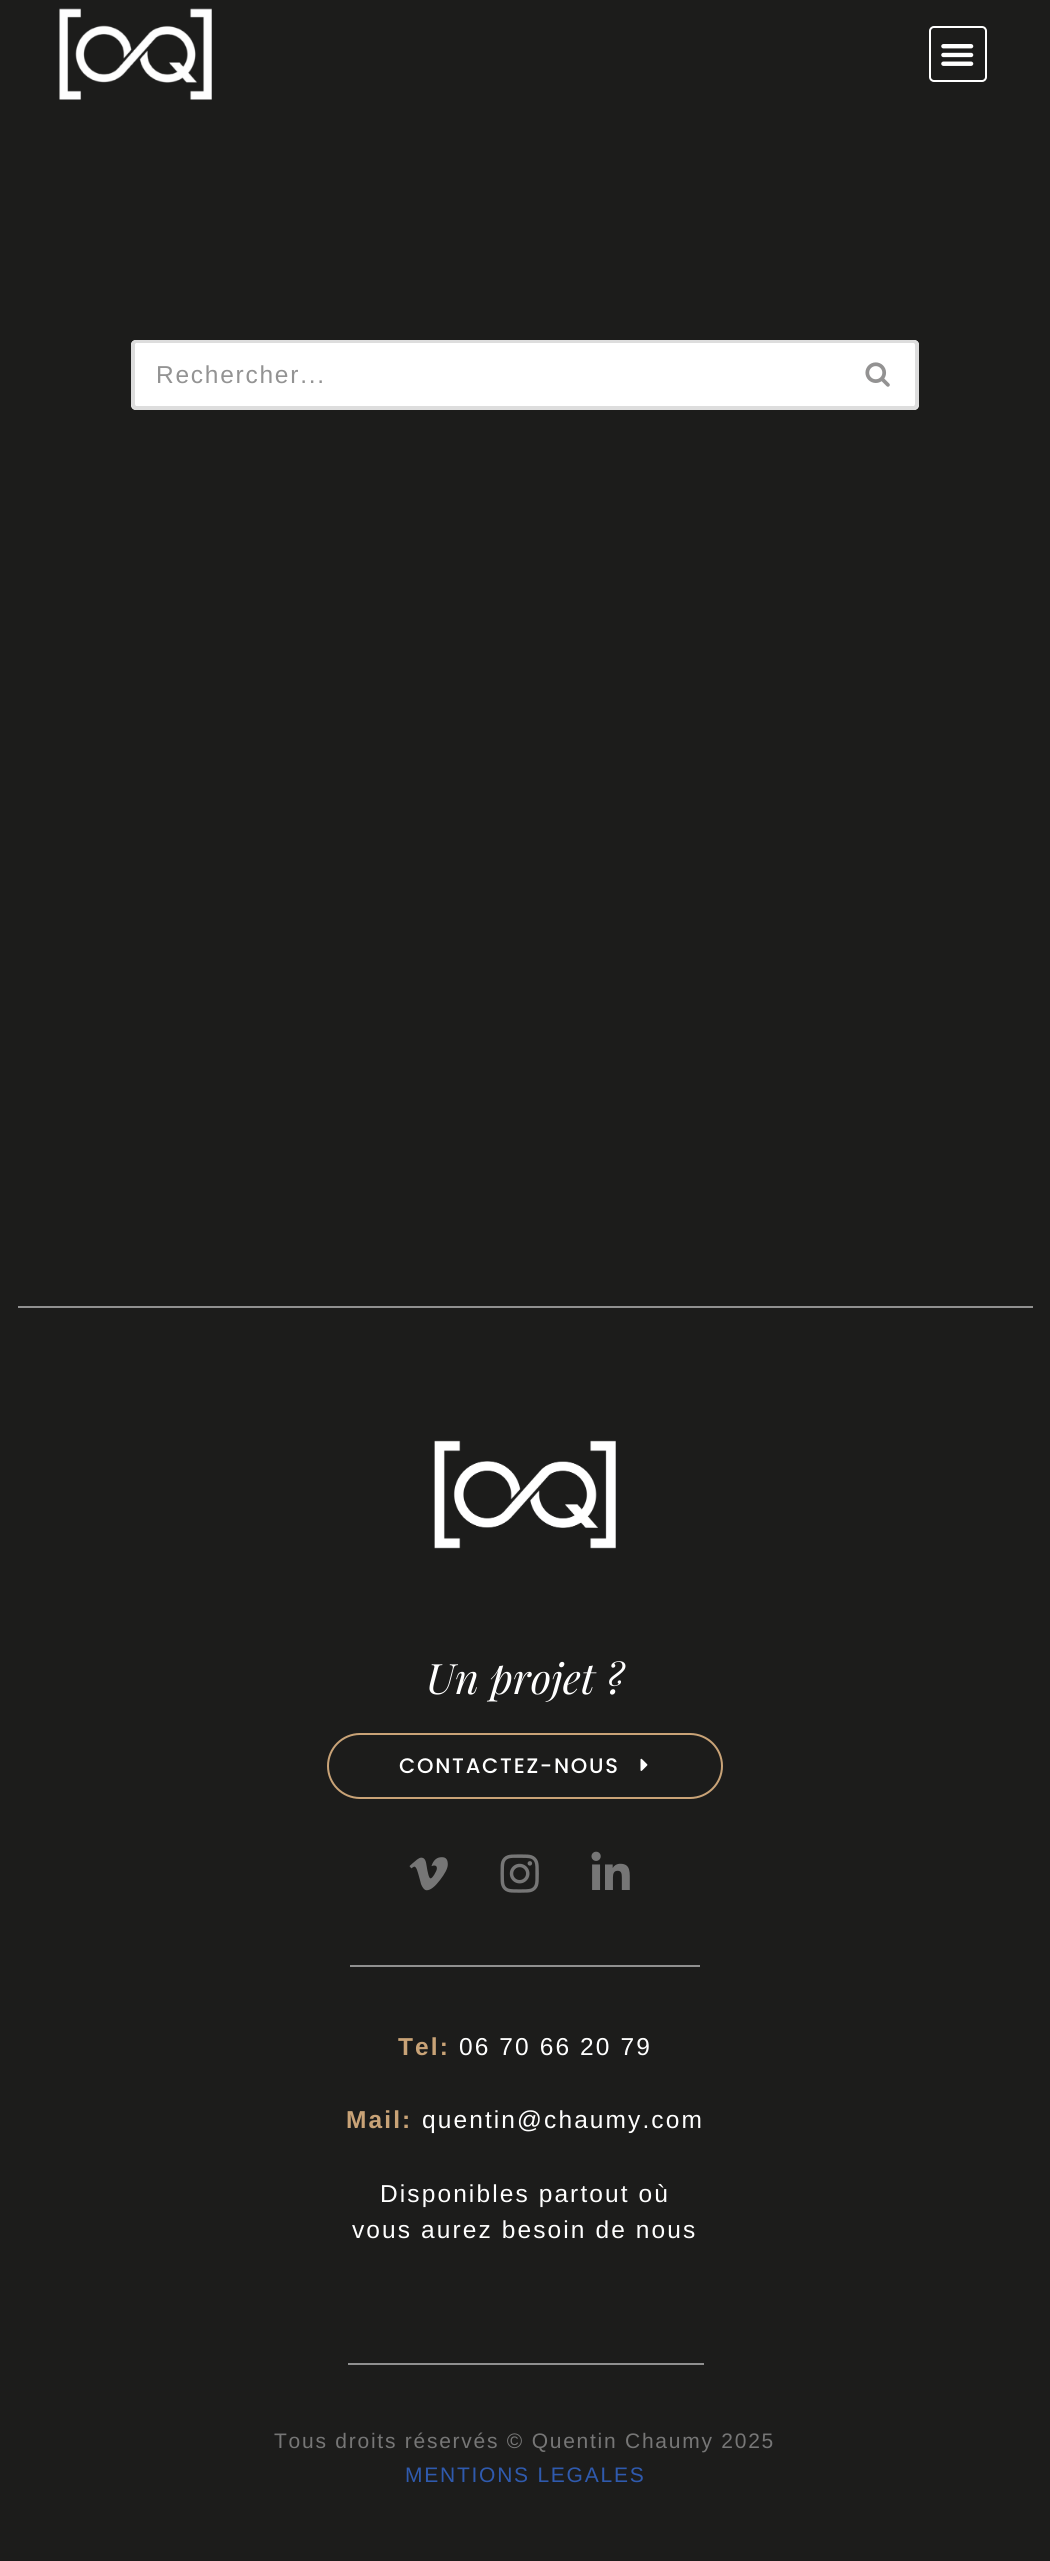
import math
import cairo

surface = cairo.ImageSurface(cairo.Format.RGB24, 1050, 2561)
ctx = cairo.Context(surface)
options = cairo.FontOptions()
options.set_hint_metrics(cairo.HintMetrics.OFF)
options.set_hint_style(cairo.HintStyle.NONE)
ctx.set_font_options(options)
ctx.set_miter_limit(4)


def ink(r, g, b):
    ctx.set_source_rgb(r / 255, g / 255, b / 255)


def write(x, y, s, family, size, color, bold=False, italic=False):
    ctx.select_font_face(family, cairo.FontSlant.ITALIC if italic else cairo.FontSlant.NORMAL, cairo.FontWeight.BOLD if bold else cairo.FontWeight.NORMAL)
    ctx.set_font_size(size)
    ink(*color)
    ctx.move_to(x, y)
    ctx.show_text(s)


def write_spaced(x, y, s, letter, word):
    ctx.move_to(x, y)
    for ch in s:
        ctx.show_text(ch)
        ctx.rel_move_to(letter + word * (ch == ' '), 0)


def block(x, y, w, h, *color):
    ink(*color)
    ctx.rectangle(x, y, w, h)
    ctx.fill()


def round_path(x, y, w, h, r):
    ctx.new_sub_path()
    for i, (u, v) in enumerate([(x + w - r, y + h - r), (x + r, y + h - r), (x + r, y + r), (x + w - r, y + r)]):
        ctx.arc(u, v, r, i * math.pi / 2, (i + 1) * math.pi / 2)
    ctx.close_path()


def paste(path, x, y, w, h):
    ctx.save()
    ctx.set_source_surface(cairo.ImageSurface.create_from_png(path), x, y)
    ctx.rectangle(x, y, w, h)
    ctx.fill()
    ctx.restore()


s1 = dict(family="Playfair Display", size=42, color=(255, 255, 255), italic=True)

ink(28, 28, 27)
ctx.paint()
paste("pic1.png", 59, 8, 153, 92)
round_path(930, 27, 56, 54, 4)
ink(255, 255, 255)
ctx.stroke()
paste("pic2.png", 941, 44, 33, 22)
ctx.new_path()
ctx.move_to(136, 340)
ctx.line_to(840, 340)
ctx.line_to(840, 410)
ctx.line_to(136, 410)
ctx.curve_to(133, 410, 131, 408, 131, 405)
ctx.line_to(131, 345)
ctx.curve_to(131, 342, 133, 340, 136, 340)
ctx.close_path()
ctx.fill()
ink(221, 221, 221)
ctx.set_fill_rule(cairo.FillRule.EVEN_ODD)
ctx.new_path()
ctx.move_to(136, 340)
ctx.line_to(840, 340)
ctx.line_to(840, 410)
ctx.line_to(136, 410)
ctx.curve_to(134, 410, 131, 407, 131, 404)
ctx.line_to(131, 345)
ctx.curve_to(131, 342, 134, 340, 136, 340)
ctx.close_path()
ctx.move_to(136, 343)
ctx.line_to(840, 343)
ctx.line_to(840, 406)
ctx.line_to(136, 406)
ctx.curve_to(136, 406, 135, 405, 135, 404)
ctx.line_to(135, 344)
ctx.close_path()
ctx.fill()
ctx.select_font_face("Liberation Sans")
ctx.set_font_size(24.5)
ink(147, 147, 147)
write_spaced(156, 383, "Rechercher...", 1.75, 0)
ink(255, 255, 255)
ctx.new_path()
ctx.move_to(840, 340)
ctx.line_to(914, 340)
ctx.curve_to(917, 340, 919, 342, 919, 345)
ctx.line_to(919, 405)
ctx.curve_to(919, 408, 917, 410, 914, 410)
ctx.line_to(840, 410)
ctx.close_path()
ctx.fill()
ink(221, 221, 221)
ctx.new_path()
ctx.move_to(840, 340)
ctx.line_to(914, 340)
ctx.curve_to(916, 340, 919, 342, 919, 345)
ctx.line_to(919, 404)
ctx.curve_to(919, 407, 916, 410, 914, 410)
ctx.line_to(840, 410)
ctx.close_path()
ctx.move_to(840, 343)
ctx.line_to(914, 343)
ctx.curve_to(914, 343, 915, 344, 915, 345)
ctx.line_to(915, 404)
ctx.curve_to(915, 405, 914, 406, 914, 406)
ctx.line_to(840, 406)
ctx.close_path()
ctx.fill()
paste("pic3.png", 865, 362, 25, 25)
block(18, 1306, 1015, 2, 144, 144, 144)
paste("pic4.png", 434, 1440, 182, 109)
write(426, 1694, "Un projet ?", **s1)
round_path(328, 1734, 394, 64, 32)
ink(201, 163, 119)
ctx.stroke()
ctx.select_font_face("Poppins Medium")
ctx.set_font_size(21)
ink(255, 255, 255)
write_spaced(399, 1773, "CONTACTEZ-NOUS", 1.75, 0)
paste("pic5.png", 640, 1758, 8, 13)
paste("pic6.png", 409, 1857, 39, 34)
paste("pic7.png", 500, 1854, 39, 39)
paste("pic8.png", 591, 1851, 39, 39)
block(350, 1965, 350, 2, 144, 144, 144)
ctx.select_font_face("Liberation Sans", cairo.FontSlant.NORMAL, cairo.FontWeight.BOLD)
ctx.set_font_size(24.5)
ink(201, 163, 119)
write_spaced(398, 2055, "Tel:", 2.1, 0)
ctx.select_font_face("Liberation Sans")
ink(255, 255, 255)
write_spaced(459, 2055, "06 70 66 20 79", 2.1, 0)
ctx.select_font_face("Liberation Sans", cairo.FontSlant.NORMAL, cairo.FontWeight.BOLD)
ink(201, 163, 119)
write_spaced(346, 2128, "Mail:", 2.1, 0)
ctx.select_font_face("Liberation Sans")
ink(255, 255, 255)
write_spaced(422, 2128, "quentin@chaumy.com", 2.1, 0)
write_spaced(380, 2202, "Disponibles partout où", 2.1, 0)
write_spaced(352, 2238, "vous aurez besoin de nous", 2.1, 0)
block(348, 2363, 356, 2, 144, 144, 144)
ctx.set_font_size(21)
ink(118, 118, 118)
write_spaced(274, 2448, "Tous droits réservés © Quentin Chaumy 2025", 1.75, 0)
ink(47, 90, 174)
write_spaced(405, 2482, "MENTIONS LEGALES", 1.75, 0)
surface.write_to_png("screenshot.png")
